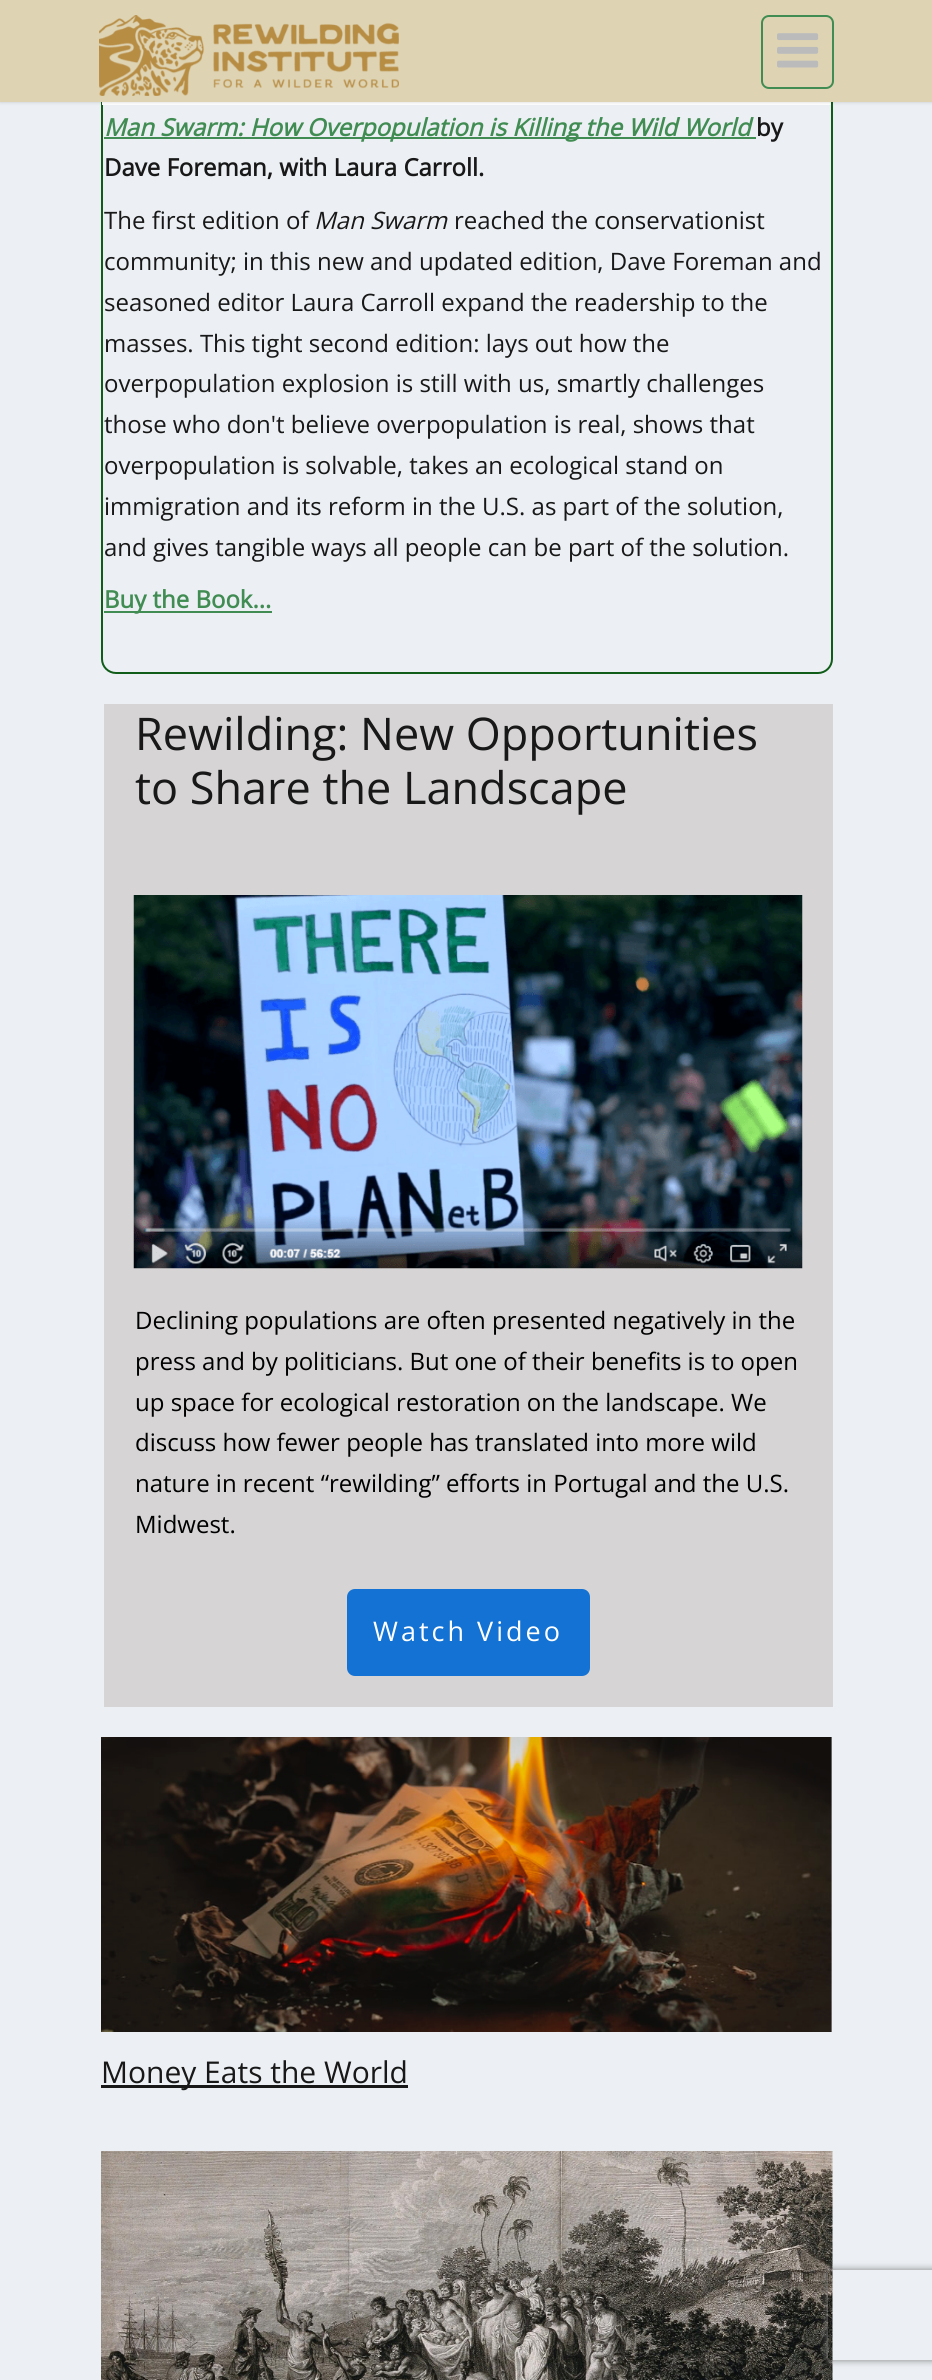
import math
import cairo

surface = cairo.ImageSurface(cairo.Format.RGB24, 932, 2380)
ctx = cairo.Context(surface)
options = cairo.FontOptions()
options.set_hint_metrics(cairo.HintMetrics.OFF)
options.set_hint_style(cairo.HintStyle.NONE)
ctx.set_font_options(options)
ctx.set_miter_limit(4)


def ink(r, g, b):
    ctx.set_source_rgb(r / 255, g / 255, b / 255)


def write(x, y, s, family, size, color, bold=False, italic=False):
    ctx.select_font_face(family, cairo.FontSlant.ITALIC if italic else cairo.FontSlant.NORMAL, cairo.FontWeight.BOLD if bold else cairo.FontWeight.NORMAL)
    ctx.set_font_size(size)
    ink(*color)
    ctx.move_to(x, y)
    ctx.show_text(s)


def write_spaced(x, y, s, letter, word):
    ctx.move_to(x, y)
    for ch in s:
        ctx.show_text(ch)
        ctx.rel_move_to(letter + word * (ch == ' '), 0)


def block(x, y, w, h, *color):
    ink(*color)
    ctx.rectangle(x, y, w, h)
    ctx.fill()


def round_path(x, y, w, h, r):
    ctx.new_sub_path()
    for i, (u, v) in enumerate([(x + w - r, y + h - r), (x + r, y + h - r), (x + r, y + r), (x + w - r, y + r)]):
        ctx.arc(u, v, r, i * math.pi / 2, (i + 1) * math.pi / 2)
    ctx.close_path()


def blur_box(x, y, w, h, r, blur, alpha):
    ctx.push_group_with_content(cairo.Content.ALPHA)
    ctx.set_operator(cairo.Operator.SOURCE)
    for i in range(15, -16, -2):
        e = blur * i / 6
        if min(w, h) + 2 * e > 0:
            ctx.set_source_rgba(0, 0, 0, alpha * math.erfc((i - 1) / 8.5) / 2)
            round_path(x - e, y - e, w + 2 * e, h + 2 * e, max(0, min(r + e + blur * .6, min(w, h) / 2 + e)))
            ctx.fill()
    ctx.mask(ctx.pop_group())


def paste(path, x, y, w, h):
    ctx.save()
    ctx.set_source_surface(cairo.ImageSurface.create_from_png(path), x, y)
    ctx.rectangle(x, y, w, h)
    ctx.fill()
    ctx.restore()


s1 = dict(family="Open Sans", size=24, color=(64, 140, 82), bold=True, italic=True)
s2 = dict(family="Open Sans", size=24, color=(24, 24, 24), bold=True)
s3 = dict(family="Open Sans", size=24, color=(24, 24, 24))
s4 = dict(family="Open Sans", size=24, color=(24, 24, 24), italic=True)
s5 = dict(family="Open Sans", size=24, color=(64, 140, 82), bold=True)
s6 = dict(family="Open Sans", size=45, color=(24, 24, 24))
s7 = dict(family="Open Sans", size=24, color=(0, 0, 0))
s8 = dict(family="Open Sans", size=30, color=(24, 24, 24))

ink(236, 240, 244)
ctx.paint()
round_path(102, -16, 730, 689, 14)
ink(16, 92, 25)
ctx.stroke()
block(102, 102, 729, 3, 255, 255, 255)
ink(1, 1, 1)
blur_box(0, 0, 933, 102, 0, 2, 0.16)
block(0, 0, 932, 102, 222, 212, 180)
paste("pic1.png", 99, 15, 300, 81)
round_path(762, 16, 71, 72, 7)
ink(64, 140, 82)
ctx.stroke()
paste("pic2.png", 777, 33, 42, 35)
block(104, 137, 646, 2, 64, 140, 82)
write(104, 136, "Man Swarm: How Overpopulation is Killing the Wild World", **s1)
block(750, 137, 6, 2, 64, 140, 82)
write(756, 136, "by", **s2)
write(104, 176, "Dave Foreman, with Laura Carroll.", **s2)
write(104, 229, "The first edition of", **s3)
write(314, 229, "Man Swarm", **s4)
write(454, 229, "reached the conservationist", **s3)
write(104, 270, "community; in this new and updated edition, Dave Foreman and", **s3)
write(104, 311, "seasoned editor Laura Carroll expand the readership to the", **s3)
write(104, 352, "masses. This tight second edition: lays out how the", **s3)
write(104, 392, "overpopulation explosion is still with us, smartly challenges", **s3)
write(104, 433, "those who don't believe overpopulation is real, shows that", **s3)
write(104, 474, "overpopulation is solvable, takes an ecological stand on", **s3)
write(104, 515, "immigration and its reform in the U.S. as part of the solution,", **s3)
write(104, 556, "and gives tangible ways all people can be part of the solution.", **s3)
block(104, 611, 168, 2, 64, 140, 82)
write(104, 608, "Buy the Book...", **s5)
block(104, 704, 729, 1003, 214, 212, 212)
write(135, 750, "Rewilding: New Opportunities", **s6)
write(135, 804, "to Share the Landscape", **s6)
paste("pic3.png", 133, 895, 670, 374)
write(135, 1329, "Declining populations are often presented negatively in the", **s7)
write(135, 1370, "press and by politicians. But one of their benefits is to open", **s7)
write(135, 1411, "up space for ecological restoration on the landscape. We", **s7)
write(135, 1451, "discuss how fewer people has translated into more wild", **s7)
write(135, 1492, "nature in recent “rewilding” efforts in Portugal and the U.S.", **s7)
write(135, 1533, "Midwest.", **s7)
ink(19, 114, 211)
round_path(347, 1589, 243, 87, 8)
ctx.fill()
ctx.set_font_size(27)
ink(255, 255, 255)
write_spaced(373, 1641, "Watch Video", 3, 0)
paste("pic4.png", 101, 1737, 731, 295)
block(101, 2085, 307, 3, 24, 24, 24)
write(101, 2083, "Money Eats the World", **s8)
paste("pic5.png", 101, 2151, 732, 229)
ctx.save()
ctx.set_fill_rule(cairo.FillRule.EVEN_ODD)
ctx.new_path()
ctx.move_to(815, 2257)
ctx.line_to(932, 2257)
ctx.line_to(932, 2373)
ctx.line_to(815, 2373)
ctx.close_path()
ctx.move_to(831, 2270)
ctx.line_to(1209, 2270)
ctx.curve_to(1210.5, 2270, 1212, 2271.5, 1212, 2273)
ctx.line_to(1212, 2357)
ctx.curve_to(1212, 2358.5, 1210.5, 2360, 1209, 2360)
ctx.line_to(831, 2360)
ctx.curve_to(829.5, 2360, 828, 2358.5, 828, 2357)
ctx.line_to(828, 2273)
ctx.curve_to(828, 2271.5, 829.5, 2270, 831, 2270)
ctx.close_path()
ctx.clip()
ink(128, 128, 128)
blur_box(828, 2270, 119, 90, 3, 4, 1)
ctx.restore()
surface.write_to_png("screenshot.png")
